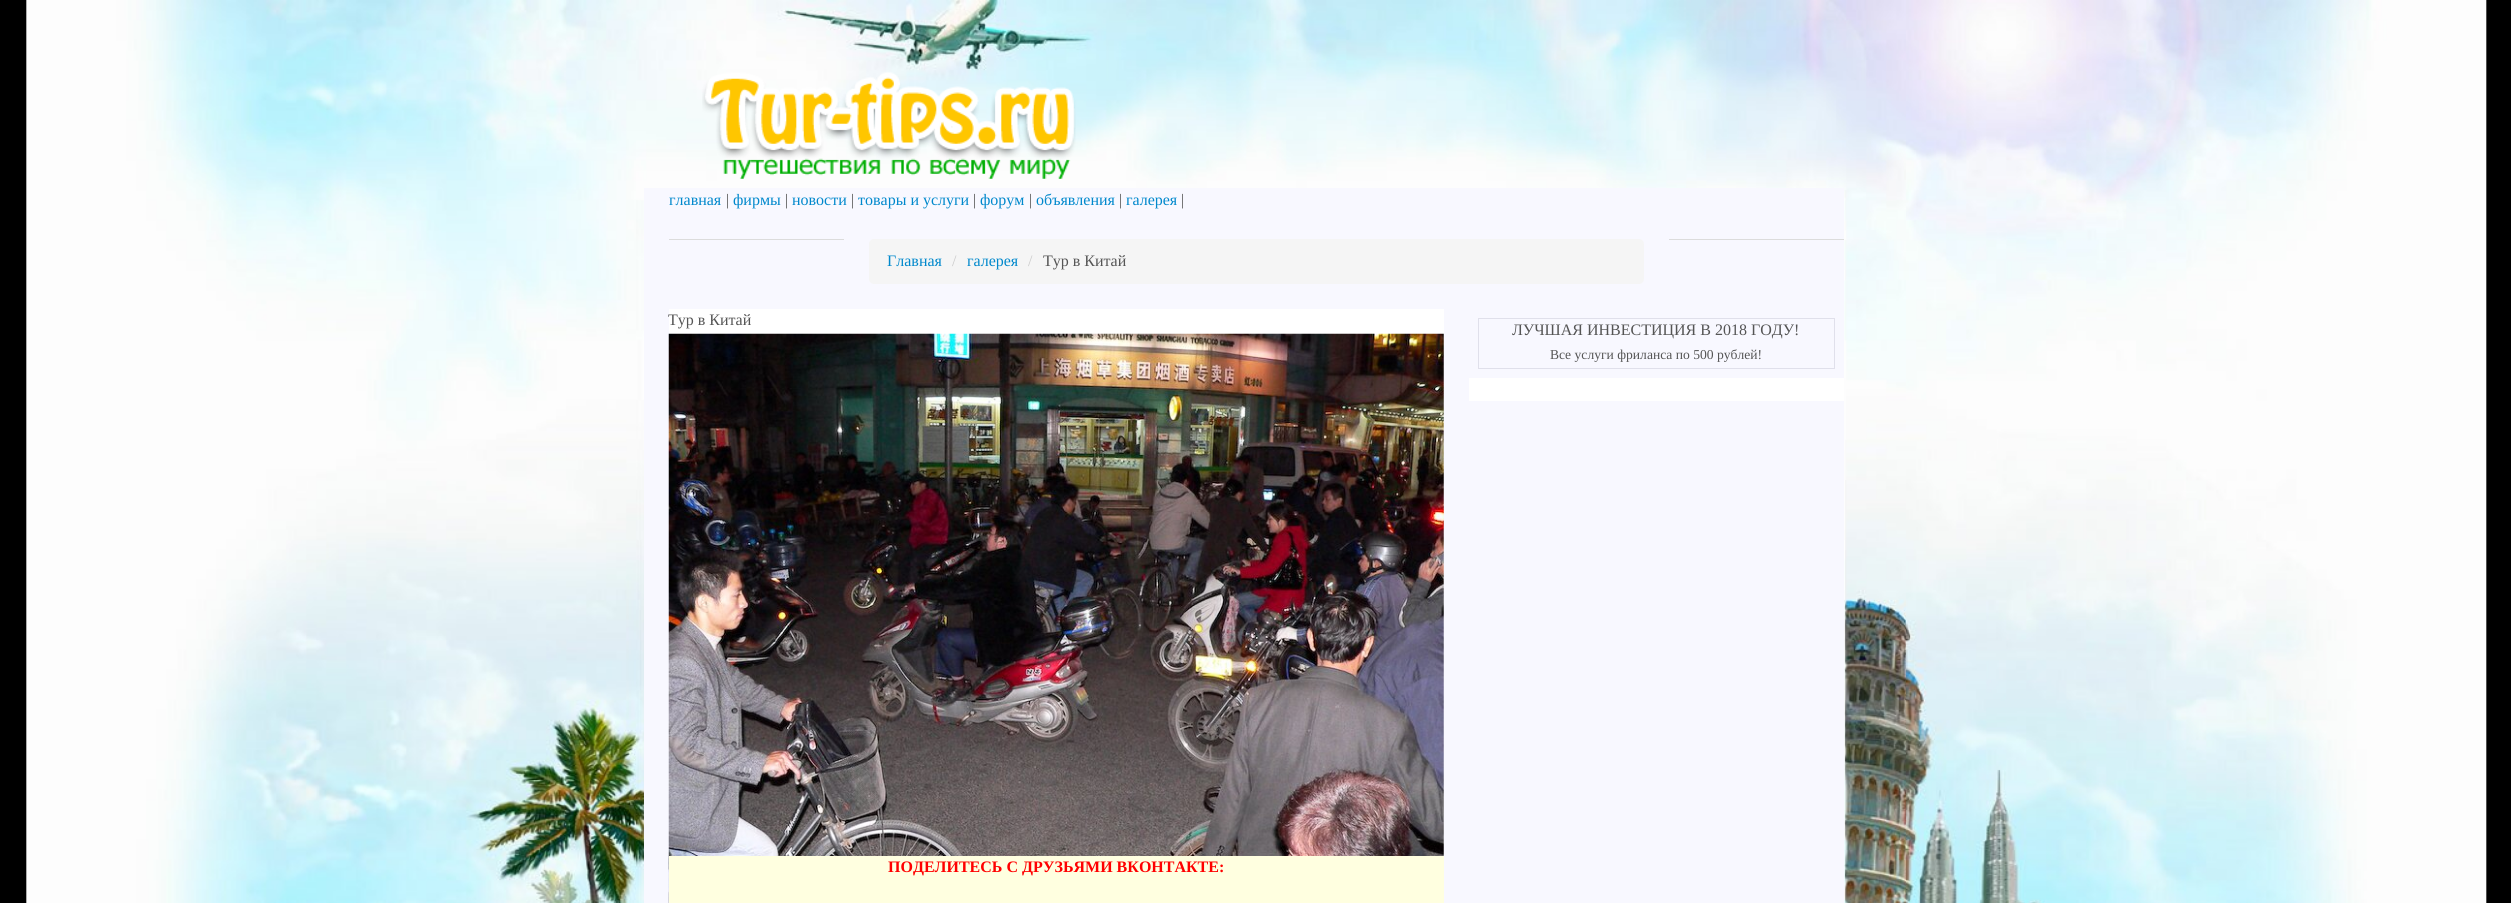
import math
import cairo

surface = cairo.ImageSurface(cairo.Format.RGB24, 2511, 903)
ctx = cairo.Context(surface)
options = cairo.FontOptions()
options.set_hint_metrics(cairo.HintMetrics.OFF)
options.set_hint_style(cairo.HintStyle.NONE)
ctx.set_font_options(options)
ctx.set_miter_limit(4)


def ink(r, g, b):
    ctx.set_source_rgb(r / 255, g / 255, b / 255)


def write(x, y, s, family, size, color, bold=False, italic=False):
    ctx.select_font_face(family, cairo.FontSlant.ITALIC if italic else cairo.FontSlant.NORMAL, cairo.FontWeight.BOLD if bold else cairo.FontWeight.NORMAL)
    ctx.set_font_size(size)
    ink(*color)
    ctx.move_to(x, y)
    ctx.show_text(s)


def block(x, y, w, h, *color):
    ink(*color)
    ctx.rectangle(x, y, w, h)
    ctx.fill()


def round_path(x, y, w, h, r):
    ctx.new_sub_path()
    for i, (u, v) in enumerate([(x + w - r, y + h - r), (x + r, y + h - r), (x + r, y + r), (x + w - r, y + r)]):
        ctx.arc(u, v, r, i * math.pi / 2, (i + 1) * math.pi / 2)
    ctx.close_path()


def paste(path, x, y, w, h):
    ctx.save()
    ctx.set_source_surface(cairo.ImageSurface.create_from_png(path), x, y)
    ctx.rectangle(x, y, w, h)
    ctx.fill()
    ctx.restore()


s1 = dict(family="Liberation Serif", size=16, color=(0, 136, 204))
s2 = dict(family="Liberation Serif", size=16, color=(85, 85, 85))
s3 = dict(family="Liberation Serif", size=16, color=(204, 204, 204))
s4 = dict(family="Liberation Serif", size=16, color=(255, 0, 0), bold=True)
s5 = dict(family="Liberation Serif", size=13.6, color=(85, 85, 85))

ink(0, 0, 0)
ctx.paint()
paste("pic1.png", 26, 0, 2461, 903)
paste("pic2.png", 702, 72, 374, 107)
block(644, 188, 1200, 715, 248, 248, 255)
write(669, 205, "главная", **s1)
write(726, 205, "|", **s2)
write(733, 205, "фирмы", **s1)
write(785, 205, "|", **s2)
write(792, 205, "новости", **s1)
write(851, 205, "|", **s2)
write(858, 205, "товары и услуги", **s1)
write(973, 205, "|", **s2)
write(980, 205, "форум", **s1)
write(1029, 205, "|", **s2)
write(1036, 205, "объявления", **s1)
write(1119, 205, "|", **s2)
write(1126, 205, "галерея", **s1)
write(1181, 205, "|", **s2)
block(669, 239, 175, 1, 220, 220, 220)
block(1669, 239, 175, 1, 220, 220, 220)
ink(245, 245, 245)
round_path(869, 239, 775, 45, 5)
ctx.fill()
write(887, 266, "Главная", **s1)
write(952, 266, "/", **s3)
write(967, 266, "галерея", **s1)
write(1028, 266, "/", **s3)
write(1043, 266, "Тур в Китай", **s2)
block(669, 309, 775, 547, 255, 255, 255)
write(668, 325, "Тур в Китай", **s2)
paste("pic3.png", 668, 333, 776, 570)
block(669, 856, 775, 47, 255, 255, 224)
write(888, 872, "ПОДЕЛИТЕСЬ С ДРУЗЬЯМИ ВКОНТАКТЕ:", **s4)
ctx.rectangle(1478.5, 318.5, 356, 50)
ink(224, 224, 235)
ctx.set_line_width(1)
ctx.stroke()
write(1512, 335, "ЛУЧШАЯ ИНВЕСТИЦИЯ В 2018 ГОДУ!", **s2)
write(1550, 359, "Все услуги фриланса по 500 рублей!", **s5)
block(1469, 378, 375, 23, 255, 255, 255)
surface.write_to_png("screenshot.png")
